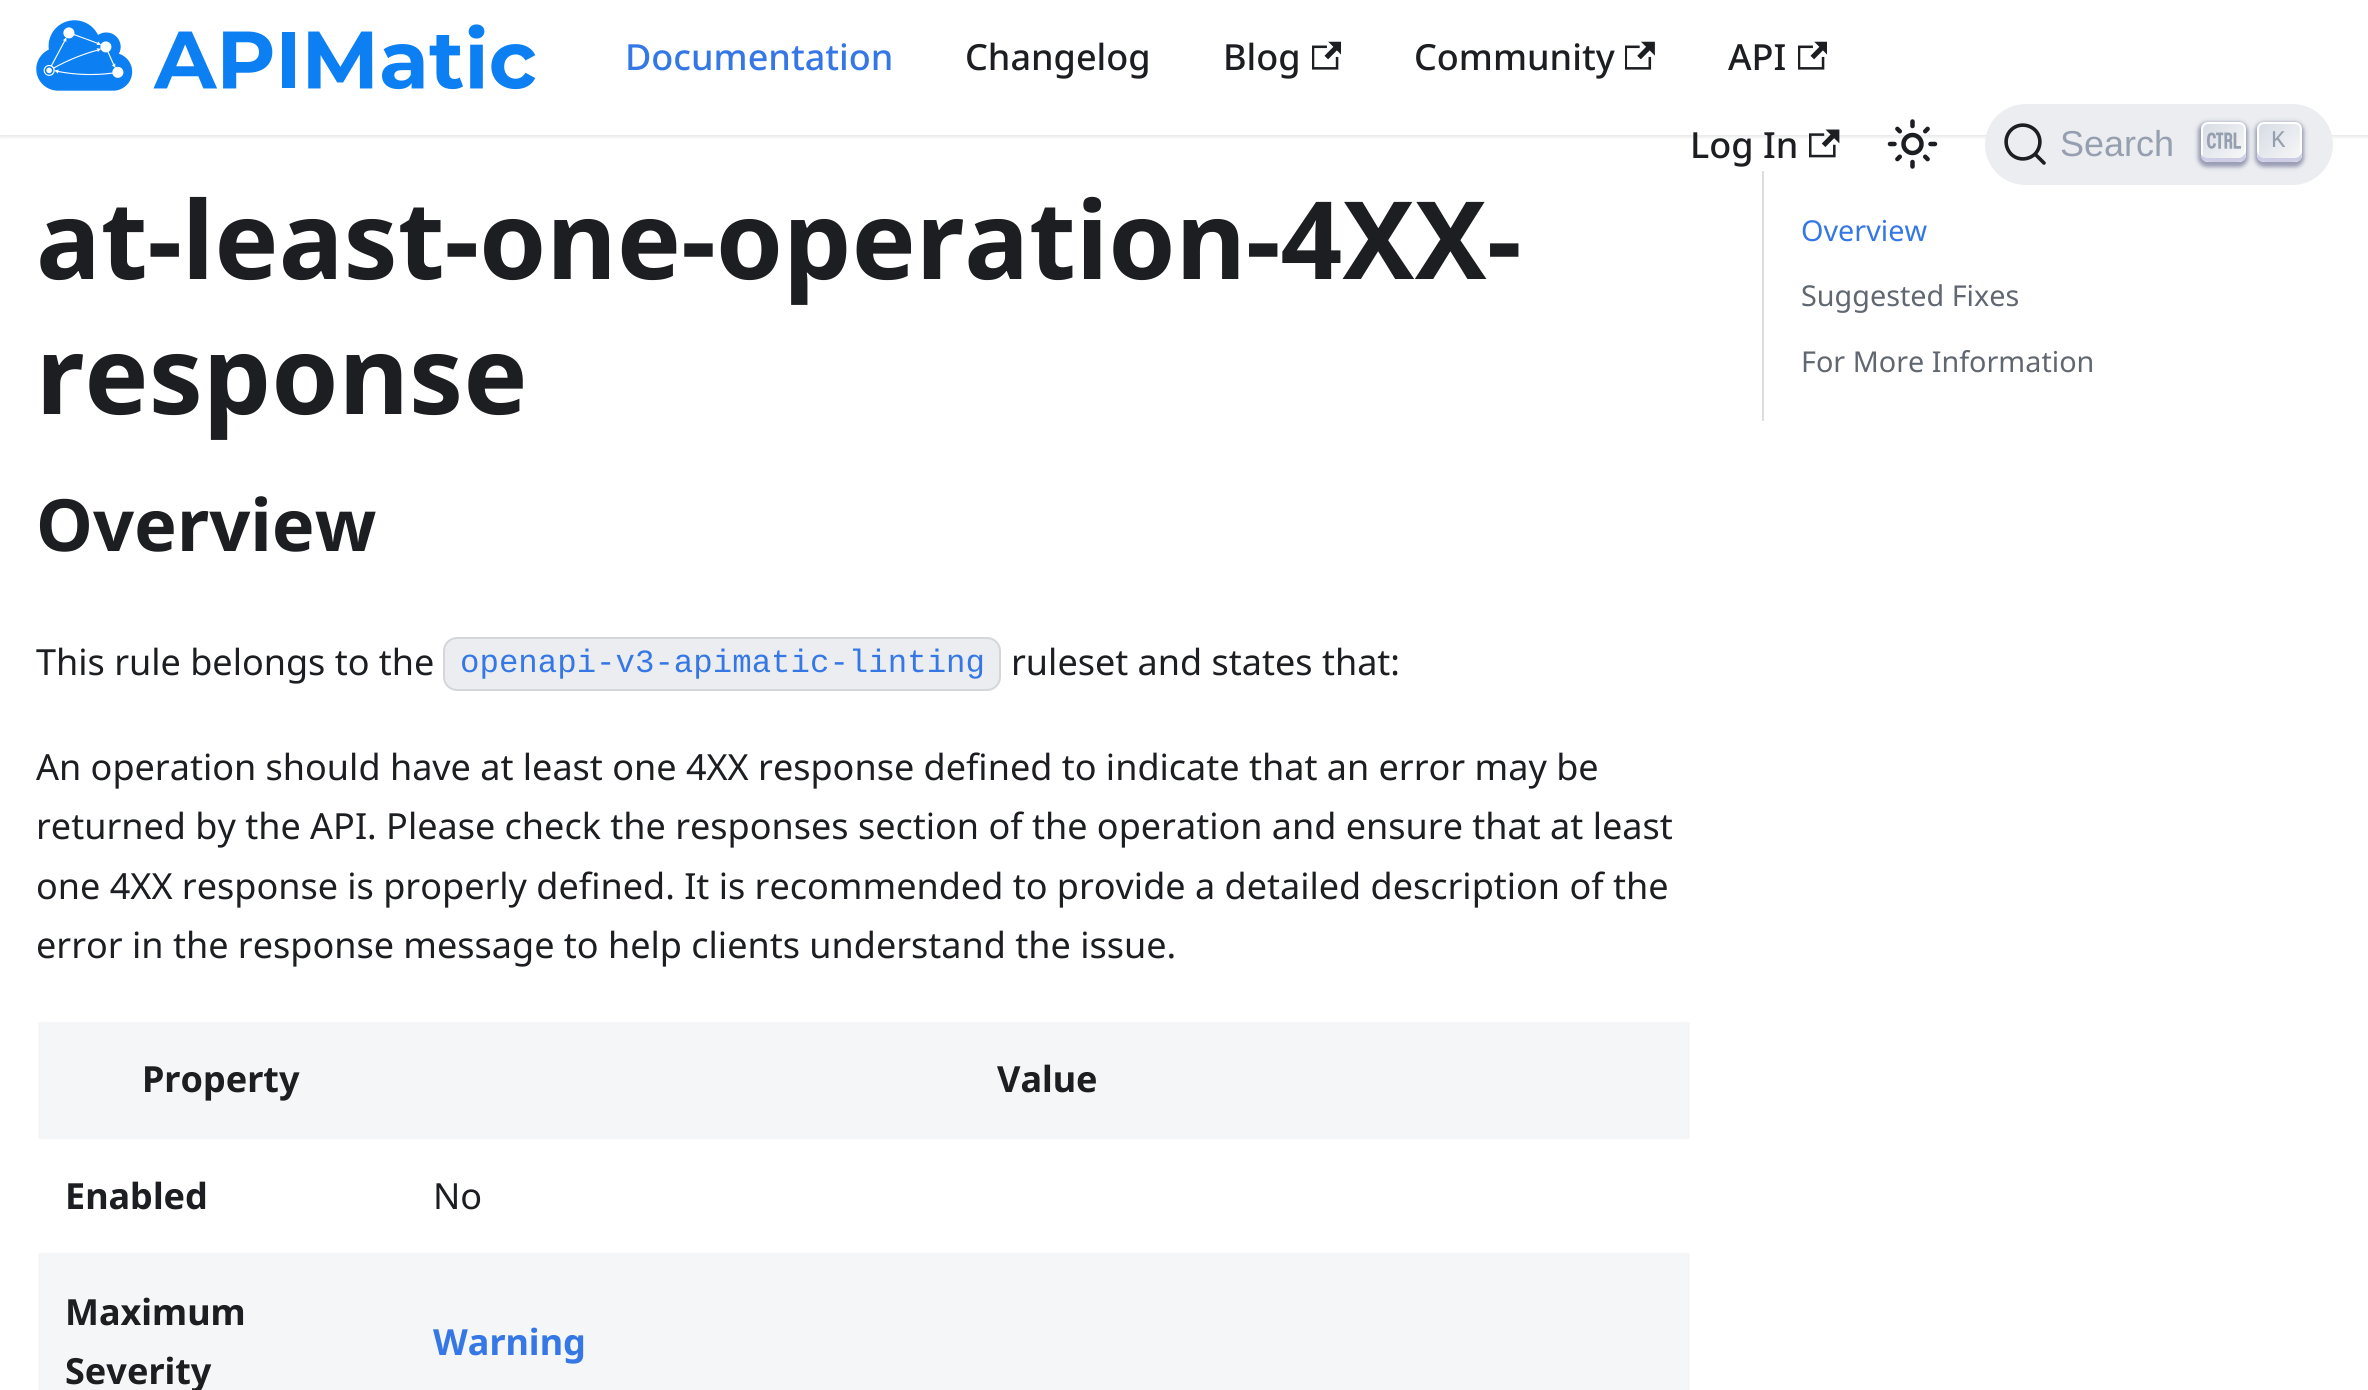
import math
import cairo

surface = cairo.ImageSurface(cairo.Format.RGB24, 2368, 1390)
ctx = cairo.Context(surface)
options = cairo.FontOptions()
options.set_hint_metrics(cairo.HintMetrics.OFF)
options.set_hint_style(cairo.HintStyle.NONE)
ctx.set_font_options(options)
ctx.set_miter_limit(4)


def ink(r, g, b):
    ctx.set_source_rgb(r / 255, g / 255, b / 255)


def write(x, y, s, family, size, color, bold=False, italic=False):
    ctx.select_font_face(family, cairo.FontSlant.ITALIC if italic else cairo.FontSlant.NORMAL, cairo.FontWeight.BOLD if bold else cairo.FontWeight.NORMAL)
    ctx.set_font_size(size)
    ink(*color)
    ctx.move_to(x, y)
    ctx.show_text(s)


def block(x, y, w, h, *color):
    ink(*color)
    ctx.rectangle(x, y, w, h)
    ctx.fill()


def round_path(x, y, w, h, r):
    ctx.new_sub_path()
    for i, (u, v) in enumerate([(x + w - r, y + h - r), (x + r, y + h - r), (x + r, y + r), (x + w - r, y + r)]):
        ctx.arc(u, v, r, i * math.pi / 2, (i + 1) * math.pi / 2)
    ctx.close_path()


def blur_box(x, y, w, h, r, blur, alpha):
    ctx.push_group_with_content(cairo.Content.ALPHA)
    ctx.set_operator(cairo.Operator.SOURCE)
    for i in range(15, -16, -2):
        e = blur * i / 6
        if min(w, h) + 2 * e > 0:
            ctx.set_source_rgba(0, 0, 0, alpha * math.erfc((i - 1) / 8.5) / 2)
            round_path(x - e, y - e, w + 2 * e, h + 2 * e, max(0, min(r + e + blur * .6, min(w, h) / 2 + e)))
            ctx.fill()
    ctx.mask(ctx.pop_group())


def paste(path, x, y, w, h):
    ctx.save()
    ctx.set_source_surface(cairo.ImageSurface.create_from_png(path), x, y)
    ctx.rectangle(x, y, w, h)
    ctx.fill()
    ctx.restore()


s1 = dict(family="Noto Sans Medium", size=36, color=(53, 120, 229))
s2 = dict(family="Noto Sans Medium", size=36, color=(28, 30, 33))
s3 = dict(family="Liberation Sans", size=36, color=(150, 159, 175))
s4 = dict(family="Liberation Mono", size=24, color=(150, 159, 175))
s5 = dict(family="Noto Sans", size=108, color=(28, 30, 33), bold=True)
s6 = dict(family="Noto Sans", size=72, color=(28, 30, 33), bold=True)
s7 = dict(family="Noto Sans", size=36, color=(28, 30, 33))
s8 = dict(family="Liberation Mono", size=32.4, color=(53, 120, 229))
s9 = dict(family="Noto Sans", size=36, color=(28, 30, 33), bold=True)
s10 = dict(family="Noto Sans", size=36, color=(53, 120, 229), bold=True)
s11 = dict(family="Noto Sans", size=28.75, color=(53, 120, 229))
s12 = dict(family="Noto Sans", size=28.75, color=(96, 103, 112))

ink(255, 255, 255)
ctx.paint()
ctx.save()
ctx.rectangle(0, 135, 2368, 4)
ctx.clip()
ink(0, 0, 0)
blur_box(0, 2, 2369, 135, 0, 2, 0.1)
ctx.restore()
paste("pic1.png", 36, 20, 500, 71)
write(625, 70, "Documentation", **s1)
write(965, 70, "Changelog", **s2)
write(1223, 70, "Blog", **s2)
paste("pic2.png", 1312, 41, 29, 29)
write(1414, 70, "Community", **s2)
paste("pic3.png", 1625, 41, 30, 29)
write(1728, 70, "API", **s2)
paste("pic2.png", 1798, 41, 29, 29)
write(1690, 158, "Log In", **s2)
paste("pic4.png", 1809, 129, 31, 29)
paste("pic5.png", 1887, 119, 51, 50)
ink(235, 237, 240)
round_path(1985, 104, 348, 81, 40.5)
ctx.fill()
ctx.new_path()
ctx.move_to(2035, 154)
ctx.line_to(2044, 163)
ctx.line_to(2035, 154)
ctx.curve_to(2028, 160.5, 2017.5, 160.5, 2011, 154)
ctx.curve_to(2004.5, 147, 2004.5, 136.5, 2011, 130)
ctx.curve_to(2017.5, 123.5, 2028, 123.5, 2035, 130)
ctx.curve_to(2041.5, 136.5, 2041.5, 147, 2035, 154)
ctx.close_path()
ink(28, 30, 33)
ctx.set_line_width(3.6)
ctx.set_line_cap(cairo.LineCap.ROUND)
ctx.set_line_join(cairo.LineJoin.ROUND)
ctx.stroke()
write(2060, 156, "Search", **s3)
ink(30, 35, 90)
blur_box(2198, 122, 50, 45, 9, 2, 0.4)
gradient = cairo.LinearGradient(2202, 120, 2244, 163)
gradient.add_color_stop_rgba(0, 0.835, 0.859, 0.894, 1)
gradient.add_color_stop_rgba(1, 0.973, 0.973, 0.973, 1)
ctx.set_source(gradient)
round_path(2202, 123, 43, 38, 6)
ctx.fill_preserve()
ink(255, 255, 255)
ctx.set_line_width(2)
ctx.set_line_cap(cairo.LineCap.BUTT)
ctx.set_line_join(cairo.LineJoin.MITER)
ctx.stroke()
ink(205, 205, 230)
ctx.new_path()
ctx.move_to(2201, 154)
ctx.curve_to(2201, 162, 2207, 162, 2213, 162)
ctx.line_to(2234, 162)
ctx.curve_to(2244, 162, 2246, 161, 2246, 151)
ctx.curve_to(2246, 154, 2242, 158, 2239, 158)
ctx.line_to(2207, 158)
ctx.curve_to(2205, 158, 2202, 156, 2201, 154)
ctx.close_path()
ctx.fill()
paste("pic6.png", 2207, 132, 34, 17)
ink(30, 35, 90)
blur_box(2255, 122, 49, 45, 9, 2, 0.4)
gradient = cairo.LinearGradient(2258, 120, 2301, 163)
gradient.add_color_stop_rgba(0, 0.835, 0.859, 0.894, 1)
gradient.add_color_stop_rgba(1, 0.973, 0.973, 0.973, 1)
ctx.set_source(gradient)
round_path(2258, 123, 43, 38, 6)
ctx.fill_preserve()
ink(255, 255, 255)
ctx.stroke()
ink(205, 205, 230)
ctx.new_path()
ctx.move_to(2257, 151)
ctx.curve_to(2257, 161, 2259, 162, 2269, 162)
ctx.line_to(2290, 162)
ctx.curve_to(2300, 162, 2302, 161, 2302, 151)
ctx.curve_to(2302, 154, 2299, 158, 2295, 158)
ctx.line_to(2264, 158)
ctx.curve_to(2260, 158, 2257, 154, 2257, 151)
ctx.close_path()
ctx.fill()
write(2271, 147, "K", **s4)
write(36, 279, "at-least-one-operation-4XX-", **s5)
write(36, 414, "response", **s5)
write(36, 551, "Overview", **s6)
write(36, 675, "This rule belongs to the", **s7)
ink(235, 237, 240)
round_path(443, 637, 558, 54, 14)
ctx.fill()
round_path(444, 638, 556, 52, 13)
ctx.set_source_rgba(0, 0, 0, 0.1)
ctx.stroke()
write(460, 672, "openapi-v3-apimatic-linting", **s8)
write(1011, 675, "ruleset and states that:", **s7)
write(36, 780, "An operation should have at least one 4XX response defined to indicate that an error may be", **s7)
write(36, 839, "returned by the API. Please check the responses section of the operation and ensure that at least", **s7)
write(36, 899, "one 4XX response is properly defined. It is recommended to provide a detailed description of the", **s7)
write(36, 958, "error in the response message to help clients understand the issue.", **s7)
block(38, 1022, 1652, 117, 245, 246, 247)
write(142, 1092, "Property", **s9)
write(997, 1092, "Value", **s9)
write(65, 1209, "Enabled", **s9)
write(433, 1209, "No", **s7)
block(38, 1253, 1652, 137, 245, 246, 247)
write(65, 1325, "Maximum", **s9)
write(65, 1384, "Severity", **s9)
write(433, 1355, "Warning", **s10)
block(1762, 171, 2, 250, 218, 221, 225)
write(1801, 241, "Overview", **s11)
write(1801, 306, "Suggested Fixes", **s12)
write(1801, 372, "For More Information", **s12)
surface.write_to_png("screenshot.png")
